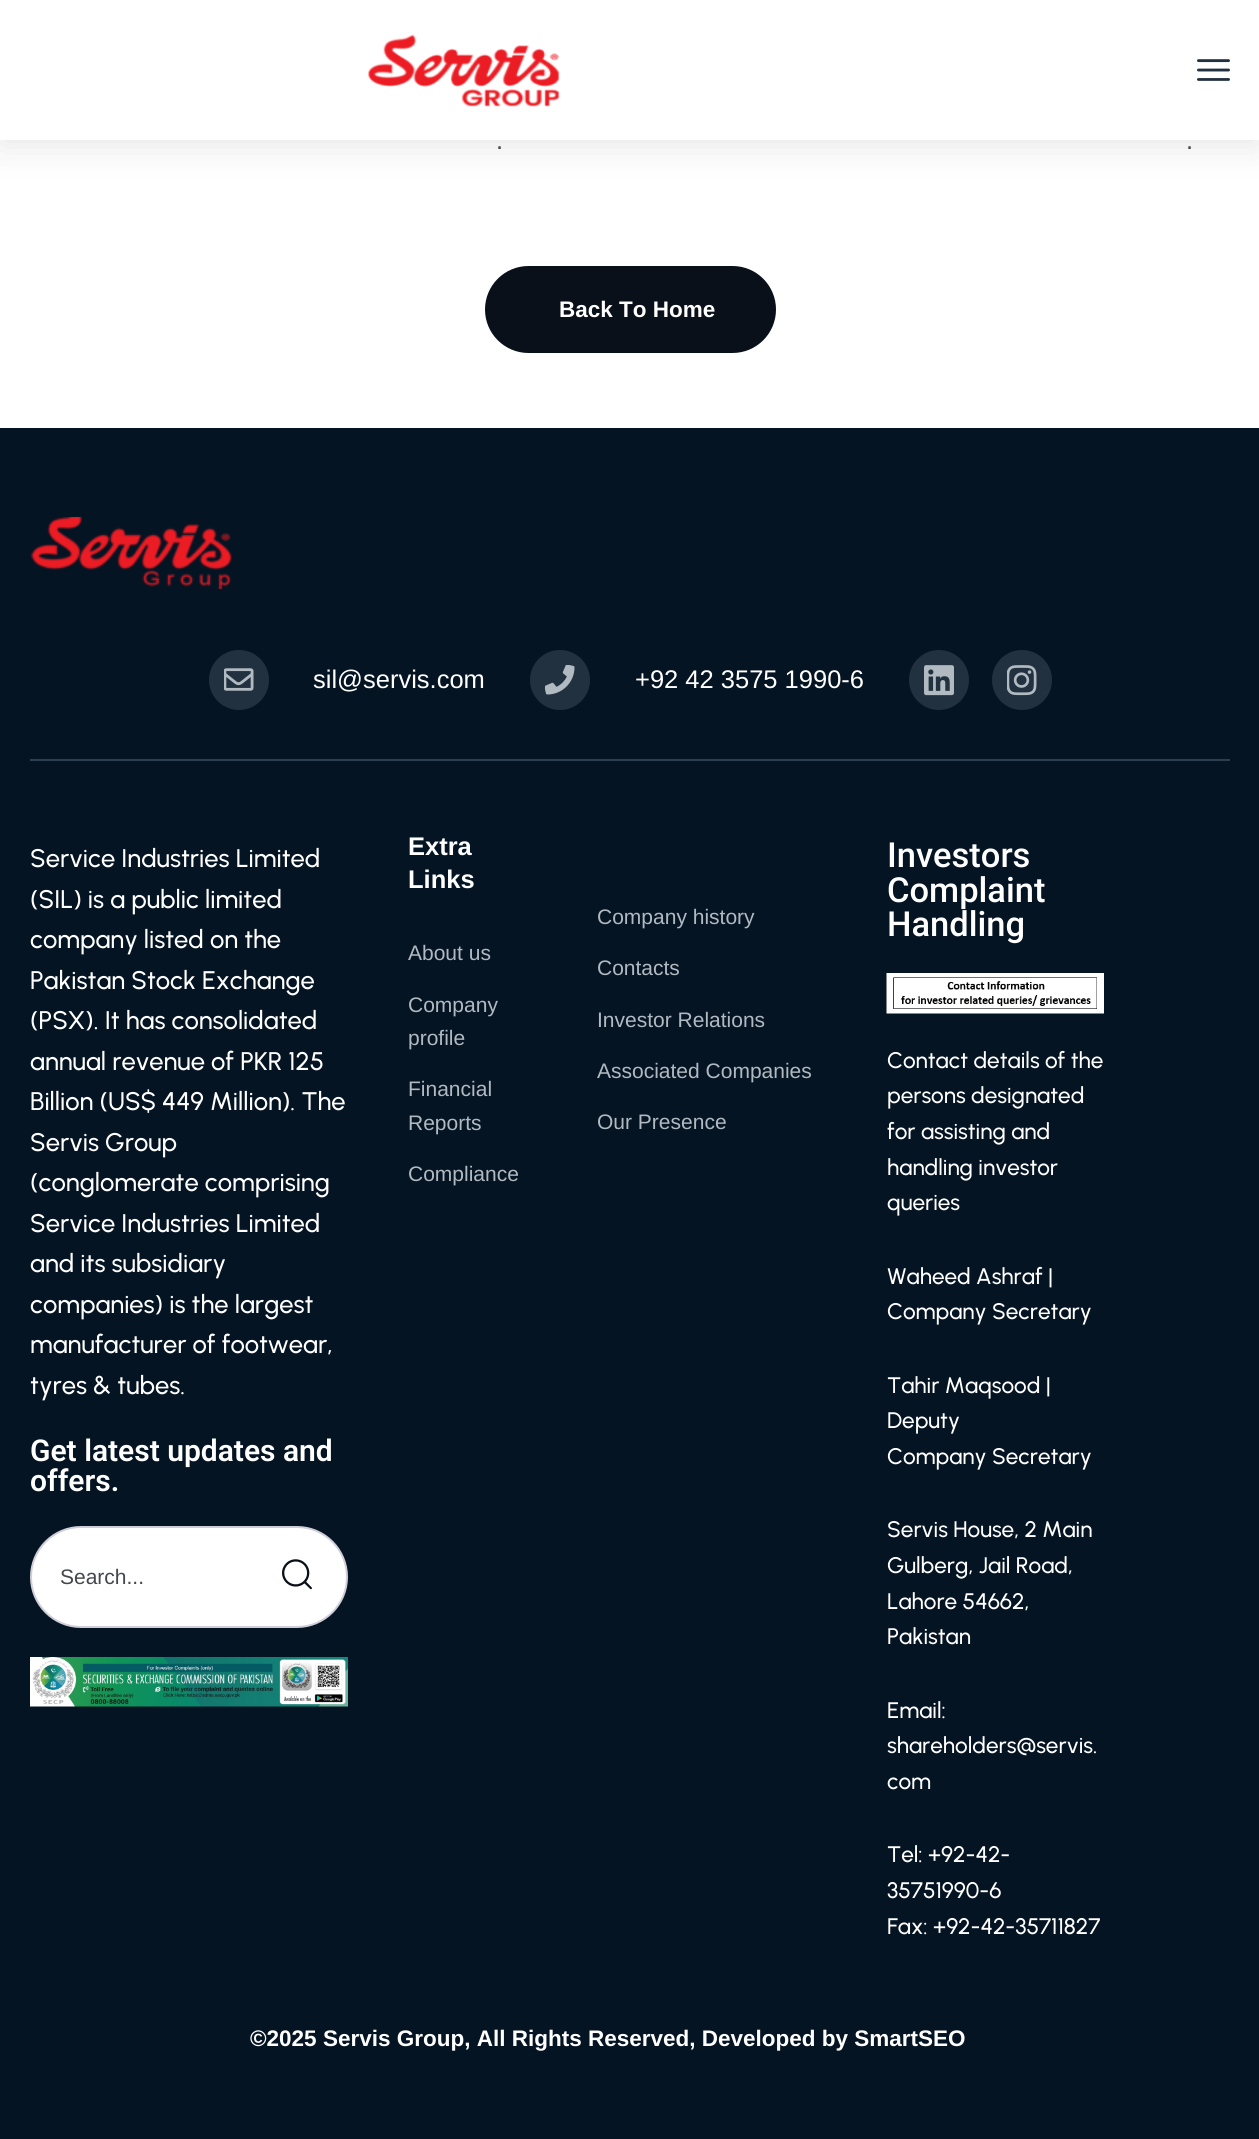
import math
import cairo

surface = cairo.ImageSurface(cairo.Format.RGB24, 1259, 2139)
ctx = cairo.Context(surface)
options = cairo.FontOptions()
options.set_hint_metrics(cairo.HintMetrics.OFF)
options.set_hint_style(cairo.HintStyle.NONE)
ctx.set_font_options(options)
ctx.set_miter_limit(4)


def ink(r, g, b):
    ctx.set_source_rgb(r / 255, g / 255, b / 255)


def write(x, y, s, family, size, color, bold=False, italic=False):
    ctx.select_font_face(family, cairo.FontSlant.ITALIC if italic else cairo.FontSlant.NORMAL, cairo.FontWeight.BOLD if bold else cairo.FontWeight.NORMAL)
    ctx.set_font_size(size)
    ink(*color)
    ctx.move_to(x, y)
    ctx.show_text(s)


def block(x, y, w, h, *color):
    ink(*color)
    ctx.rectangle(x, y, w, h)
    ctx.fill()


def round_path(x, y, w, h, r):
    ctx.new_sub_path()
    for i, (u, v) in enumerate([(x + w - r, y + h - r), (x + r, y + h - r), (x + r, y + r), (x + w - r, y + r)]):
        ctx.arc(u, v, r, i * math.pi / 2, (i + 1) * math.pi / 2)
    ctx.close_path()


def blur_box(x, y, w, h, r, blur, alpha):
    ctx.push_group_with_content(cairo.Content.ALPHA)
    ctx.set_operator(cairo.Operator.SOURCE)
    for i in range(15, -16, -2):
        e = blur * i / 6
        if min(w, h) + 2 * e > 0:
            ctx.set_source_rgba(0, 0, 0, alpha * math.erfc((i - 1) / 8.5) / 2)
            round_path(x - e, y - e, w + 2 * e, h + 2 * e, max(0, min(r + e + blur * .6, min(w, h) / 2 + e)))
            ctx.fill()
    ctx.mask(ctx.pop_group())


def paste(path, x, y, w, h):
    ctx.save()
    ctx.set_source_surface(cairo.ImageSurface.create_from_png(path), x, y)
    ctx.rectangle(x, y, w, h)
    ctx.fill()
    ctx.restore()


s1 = dict(family="Liberation Sans", size=25.5, color=(66, 72, 78))
s2 = dict(family="Liberation Sans", size=22.5, color=(255, 255, 255), bold=True)
s3 = dict(family="Liberation Sans", size=25.5, color=(255, 255, 255))
s4 = dict(family="Urbanist Medium", size=25.5, color=(255, 255, 255))
s5 = dict(family="Roboto SemiBold", size=30, color=(255, 255, 255))
s6 = dict(family="Liberation Sans", size=21, color=(66, 72, 78))
s7 = dict(family="Liberation Sans", size=25.5, color=(255, 255, 255), bold=True)
s8 = dict(family="Liberation Sans", size=21, color=(177, 185, 193))
s9 = dict(family="Roboto Medium", size=34.5, color=(255, 255, 255))
s10 = dict(family="Urbanist Medium", size=22.5, color=(255, 255, 255))

ink(255, 255, 255)
ctx.paint()
ink(0, 0, 0)
blur_box(0, 6, 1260, 140, 0, 18, 0.1)
block(0, 0, 1259, 140, 255, 255, 255)
paste("pic1.png", 368, 34, 192, 73)
paste("pic2.png", 1197, 59, 33, 22)
write(496, 149, ".", **s1)
write(1186, 149, ".", **s1)
ink(9, 16, 25)
round_path(485, 266, 291, 87, 43.5)
ctx.fill()
write(559, 317, "Back To Home", **s2)
block(0, 428, 1259, 1711, 5, 20, 35)
paste("pic3.png", 30, 517, 203, 72)
ink(34, 49, 64)
ctx.arc(239, 680, 30, 0, 2 * math.pi)
ctx.fill()
paste("pic4.png", 224, 668, 30, 23)
write(313, 688, "sil@servis.com", **s3)
ink(34, 49, 64)
ctx.new_path()
ctx.arc(560, 680, 30, 0, 2 * math.pi)
ctx.fill()
paste("pic5.png", 545, 665, 30, 30)
write(635, 688, "+92 42 3575 1990-6", **s3)
ink(34, 49, 64)
ctx.new_path()
ctx.arc(939, 680, 30, 0, 2 * math.pi)
ctx.fill()
paste("pic6.png", 924, 665, 30, 31)
ctx.arc(1022, 680, 30, 0, 2 * math.pi)
ctx.fill()
paste("pic7.png", 1007, 665, 30, 31)
block(30, 759, 1200, 2, 44, 63, 81)
write(30, 867, "Service Industries Limited", **s4)
write(30, 908, "(SIL) is a public limited", **s4)
write(30, 948, "company listed on the", **s4)
write(30, 989, "Pakistan Stock Exchange", **s4)
write(30, 1029, "(PSX). It has consolidated", **s4)
write(30, 1070, "annual revenue of PKR 125", **s4)
write(30, 1110, "Billion (US$ 449 Million). The", **s4)
write(30, 1151, "Servis Group", **s4)
write(30, 1191, "(conglomerate comprising", **s4)
write(30, 1232, "Service Industries Limited", **s4)
write(30, 1272, "and its subsidiary", **s4)
write(30, 1313, "companies) is the largest", **s4)
write(30, 1353, "manufacturer of footwear,", **s4)
write(30, 1394, "tyres & tubes.", **s4)
write(30, 1461, "Get latest updates and", **s5)
write(30, 1491, "offers.", **s5)
round_path(31, 1527, 316, 100, 50)
ctx.fill_preserve()
ink(208, 206, 217)
ctx.stroke()
write(60, 1584, "Search...", **s6)
paste("pic8.png", 282, 1559, 30, 31)
paste("pic9.png", 30, 1657, 318, 50)
write(408, 855, "Extra", **s7)
write(408, 888, "Links", **s7)
write(408, 960, "About us", **s8)
write(408, 1012, "Company", **s8)
write(408, 1045, "profile", **s8)
write(408, 1096, "Financial", **s8)
write(408, 1130, "Reports", **s8)
write(408, 1181, "Compliance", **s8)
write(597, 924, "Company history", **s8)
write(597, 975, "Contacts", **s8)
write(597, 1027, "Investor Relations", **s8)
write(597, 1078, "Associated Companies", **s8)
write(597, 1129, "Our Presence", **s8)
write(887, 867, "Investors", **s9)
write(887, 902, "Complaint", **s9)
write(887, 936, "Handling", **s9)
paste("pic10.png", 886, 973, 218, 41)
write(887, 1068, "Contact details of the", **s10)
write(887, 1103, "persons designated", **s10)
write(887, 1139, "for assisting and", **s10)
write(887, 1175, "handling investor", **s10)
write(887, 1210, "queries", **s10)
write(887, 1284, "Waheed Ashraf |", **s10)
write(887, 1319, "Company Secretary", **s10)
write(887, 1393, "Tahir Maqsood |", **s10)
write(887, 1428, "Deputy", **s10)
write(887, 1464, "Company Secretary", **s10)
write(887, 1537, "Servis House, 2 Main", **s10)
write(887, 1573, "Gulberg, Jail Road,", **s10)
write(887, 1609, "Lahore 54662,", **s10)
write(887, 1644, "Pakistan", **s10)
write(887, 1718, "Email:", **s10)
write(887, 1753, "shareholders@servis.", **s10)
write(887, 1789, "com", **s10)
write(887, 1862, "Tel: +92-42-", **s10)
write(887, 1898, "35751990-6", **s10)
write(887, 1934, "Fax: +92-42-35711827", **s10)
write(250, 2046, "©2025 Servis Group, All Rights Reserved, Developed by SmartSEO", **s2)
surface.write_to_png("screenshot.png")
